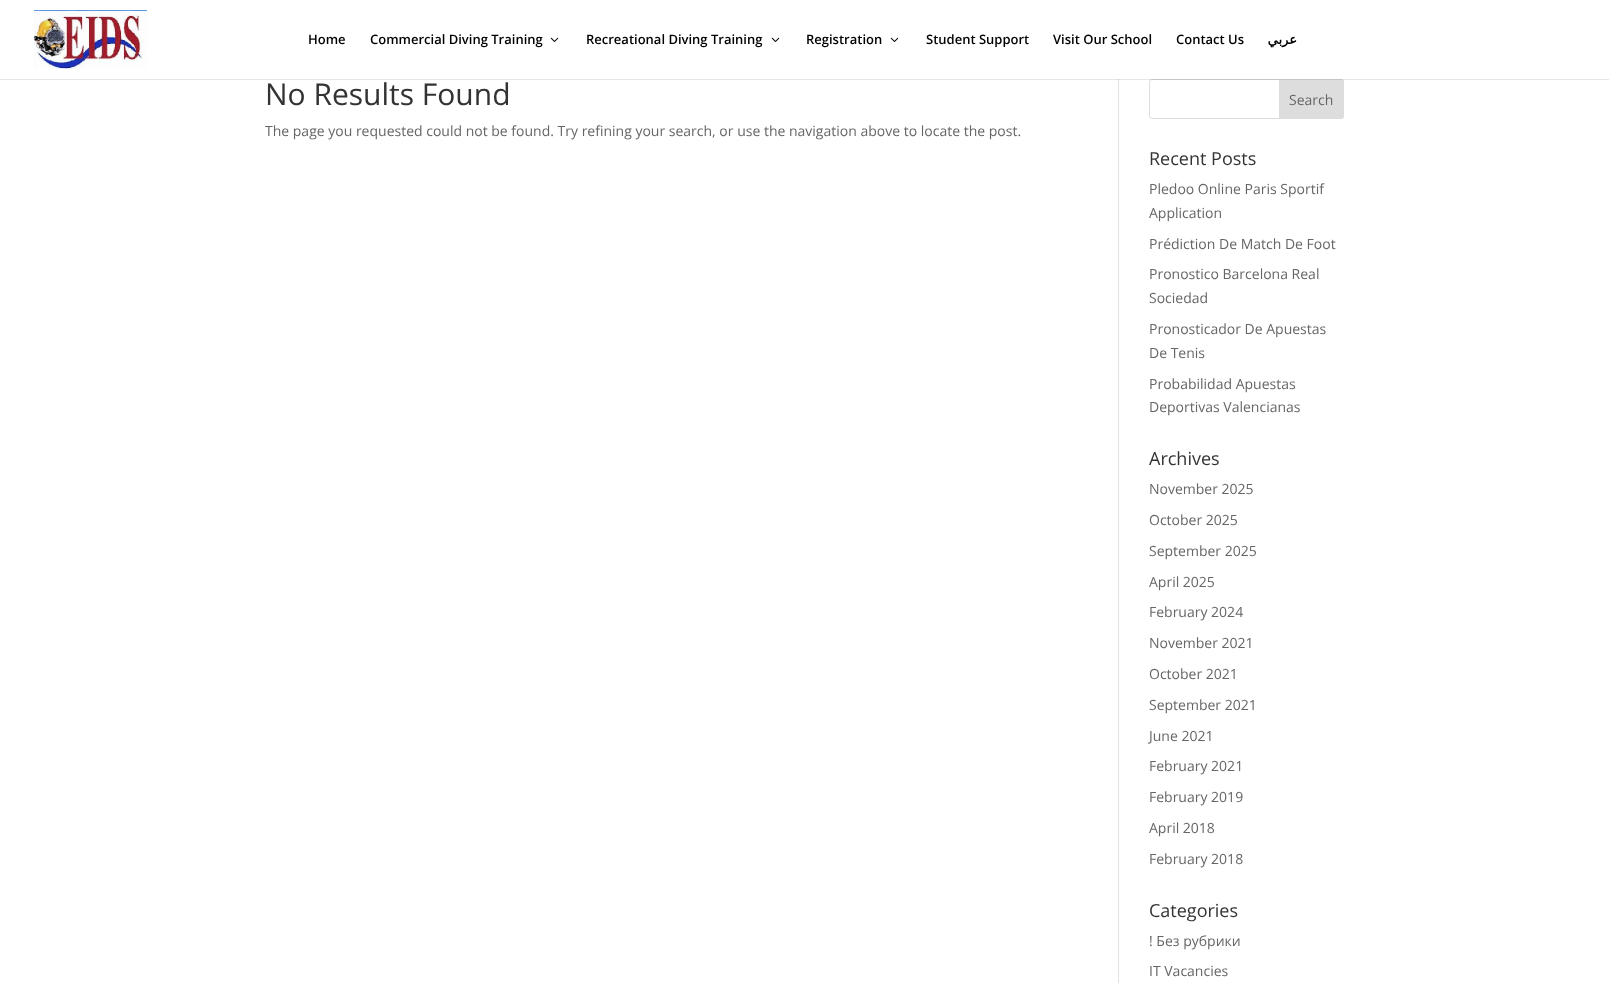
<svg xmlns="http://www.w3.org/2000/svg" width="1609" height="983">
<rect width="100%" height="100%" fill="#fff"/>
<rect x="1118" y="79" width="1" height="904" fill="#e2e2e2"/>
<rect x="1149.5" y="79.5" width="194" height="39" rx="2.5" fill="none" stroke="#ddd"/>
<path d="M1279.5 79.5h61.5c1.5 0 2.5 1 2.5 2.5v34c0 1.5-1 2.5-2.5 2.5h-61.5z" fill="#ddd" stroke="#ddd"/>
<rect y="79" width="1609" height="1" fill="#0000001a"/>
<image x="34" y="10" width="113" height="59" href="media/1.png"/>
<text x="308" y="44" style="font-family:Open Sans;font-size:13px;font-weight:600;fill:#000">Home</text>
<text x="370" y="44" style="font-family:Open Sans;font-size:13px;font-weight:600;fill:#000">Commercial Diving Training</text>
<image x="550" y="37" width="9" height="5" href="media/2.png"/>
<text x="586" y="44" style="font-family:Open Sans;font-size:13px;font-weight:600;fill:#000">Recreational Diving Training</text>
<image x="771" y="37" width="9" height="5" href="media/2.png"/>
<text x="806" y="44" style="font-family:Open Sans;font-size:13px;font-weight:600;fill:#000">Registration</text>
<image x="890" y="37" width="9" height="5" href="media/2.png"/>
<text x="926" y="44" style="font-family:Open Sans;font-size:13px;font-weight:600;fill:#000">Student Support</text>
<text x="1053" y="44" style="font-family:Open Sans;font-size:13px;font-weight:600;fill:#000">Visit Our School</text>
<text x="1176" y="44" style="font-family:Open Sans;font-size:13px;font-weight:600;fill:#000">Contact Us</text>
<text x="1297" y="44" style="font-family:DejaVu Sans;font-size:13px;font-weight:bold;direction:rtl;fill:#000">عربي</text>
<text x="265" y="105" style="font-family:Open Sans;font-size:30px;fill:#333">No Results Found</text>
<text x="265" y="136" style="font-family:Open Sans;font-size:14px;fill:#666">The page you requested could not be found. Try refining your search, or use the navigation above to locate the post.</text>
<text x="1289" y="105" style="font-family:Open Sans;font-size:14px;fill:#666">Search</text>
<text x="1149" y="165" style="font-family:Open Sans;font-size:18px;fill:#333">Recent Posts</text>
<text x="1149" y="194" style="font-family:Open Sans;font-size:14px;fill:#666">Pledoo Online Paris Sportif</text>
<text x="1149" y="218" style="font-family:Open Sans;font-size:14px;fill:#666">Application</text>
<text x="1149" y="249" style="font-family:Open Sans;font-size:14px;fill:#666">Prédiction De Match De Foot</text>
<text x="1149" y="279" style="font-family:Open Sans;font-size:14px;fill:#666">Pronostico Barcelona Real</text>
<text x="1149" y="303" style="font-family:Open Sans;font-size:14px;fill:#666">Sociedad</text>
<text x="1149" y="334" style="font-family:Open Sans;font-size:14px;fill:#666">Pronosticador De Apuestas</text>
<text x="1149" y="358" style="font-family:Open Sans;font-size:14px;fill:#666">De Tenis</text>
<text x="1149" y="389" style="font-family:Open Sans;font-size:14px;fill:#666">Probabilidad Apuestas</text>
<text x="1149" y="412" style="font-family:Open Sans;font-size:14px;fill:#666">Deportivas Valencianas</text>
<text x="1149" y="465" style="font-family:Open Sans;font-size:18px;fill:#333">Archives</text>
<text x="1149" y="494" style="font-family:Open Sans;font-size:14px;fill:#666">November 2025</text>
<text x="1149" y="525" style="font-family:Open Sans;font-size:14px;fill:#666">October 2025</text>
<text x="1149" y="556" style="font-family:Open Sans;font-size:14px;fill:#666">September 2025</text>
<text x="1149" y="587" style="font-family:Open Sans;font-size:14px;fill:#666">April 2025</text>
<text x="1149" y="617" style="font-family:Open Sans;font-size:14px;fill:#666">February 2024</text>
<text x="1149" y="648" style="font-family:Open Sans;font-size:14px;fill:#666">November 2021</text>
<text x="1149" y="679" style="font-family:Open Sans;font-size:14px;fill:#666">October 2021</text>
<text x="1149" y="710" style="font-family:Open Sans;font-size:14px;fill:#666">September 2021</text>
<text x="1149" y="741" style="font-family:Open Sans;font-size:14px;fill:#666">June 2021</text>
<text x="1149" y="771" style="font-family:Open Sans;font-size:14px;fill:#666">February 2021</text>
<text x="1149" y="802" style="font-family:Open Sans;font-size:14px;fill:#666">February 2019</text>
<text x="1149" y="833" style="font-family:Open Sans;font-size:14px;fill:#666">April 2018</text>
<text x="1149" y="864" style="font-family:Open Sans;font-size:14px;fill:#666">February 2018</text>
<text x="1149" y="917" style="font-family:Open Sans;font-size:18px;fill:#333">Categories</text>
<text x="1149" y="946" style="font-family:Open Sans;font-size:14px;fill:#666">! Без рубрики</text>
<text x="1149" y="976" style="font-family:Open Sans;font-size:14px;fill:#666">IT Vacancies</text>
</svg>
